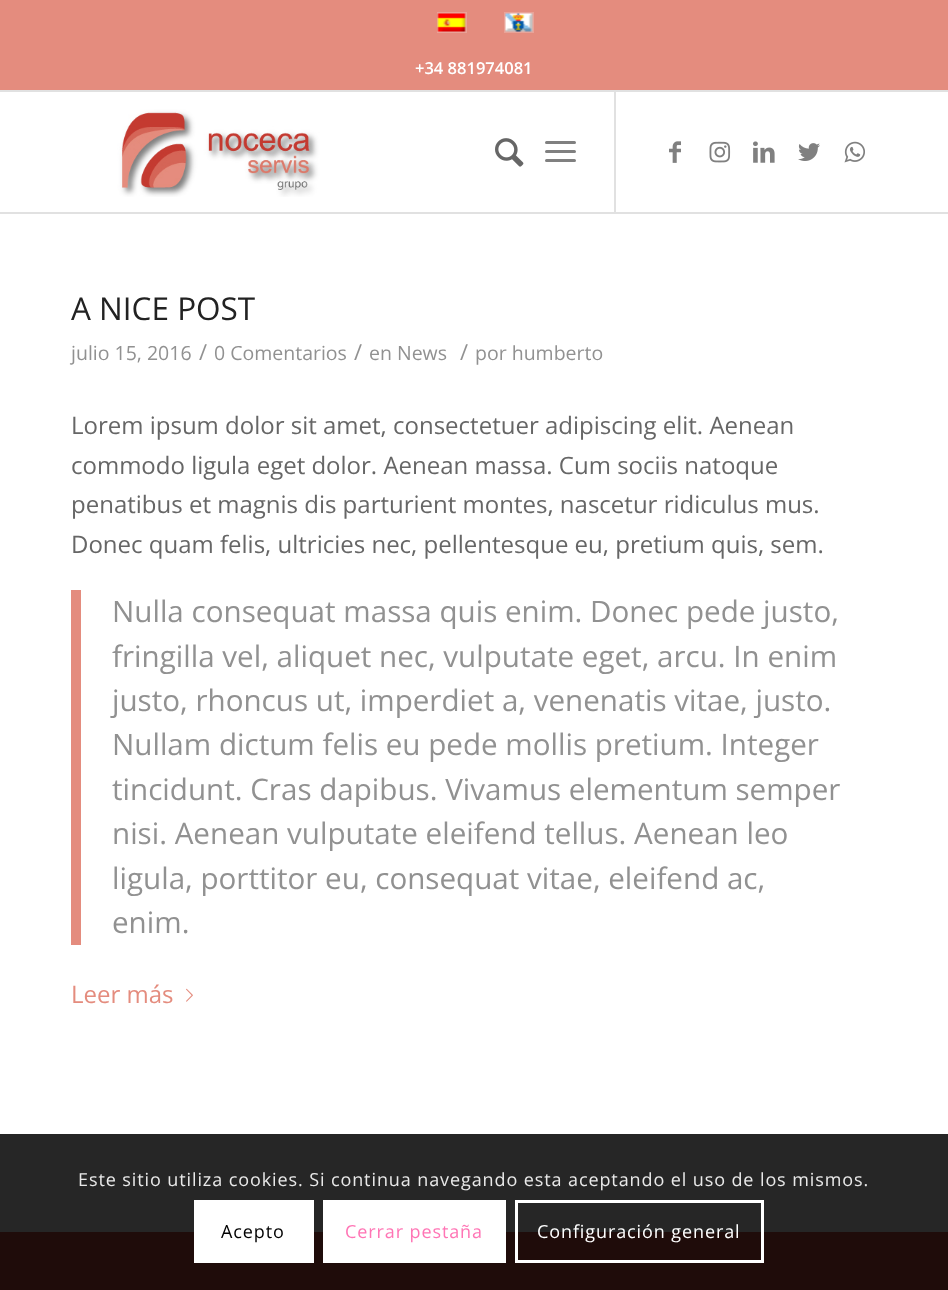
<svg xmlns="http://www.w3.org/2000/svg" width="948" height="1290">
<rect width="100%" height="100%" fill="#fff"/>
<rect width="948" height="90" fill="#e48c7e"/>
<rect y="90" width="948" height="2" fill="#e1e1e1"/>
<rect x="438" y="13" width="28" height="19" fill="none" stroke="#e9a398" stroke-width="2"/>
<image x="437" y="13" width="29" height="19" href="media/1.png"/>
<rect x="505" y="13" width="28" height="19" fill="none" stroke="#e9a398" stroke-width="2"/>
<image x="505" y="13" width="28" height="19" href="media/2.png"/>
<text x="415" y="74" style="font-family:Open Sans;font-size:16.5px;font-weight:600;fill:#fff">+34 881974081</text>
<rect y="212" width="948" height="2" fill="#e1e1e1"/>
<image x="71" y="92" width="289" height="105" href="media/3.png"/>
<rect x="614" y="92" width="2" height="120" fill="#e1e1e1"/>
<image x="495" y="138" width="29" height="29" href="media/4.png"/>
<rect x="545" y="150" width="31" height="3" rx="1.5" fill="#808080"/>
<rect x="545" y="141" width="31" height="3" rx="1.5" fill="#808080"/>
<rect x="545" y="159" width="31" height="3" rx="1.5" fill="#808080"/>
<image x="669" y="141" width="12" height="22" href="media/5.png"/>
<image x="709" y="141" width="22" height="22" href="media/6.png"/>
<image x="753" y="141" width="22" height="22" href="media/7.png"/>
<image x="798" y="143" width="22" height="18" href="media/8.png"/>
<image x="844" y="141" width="21" height="22" href="media/9.png"/>
<rect y="1134" width="948" height="98" fill="#262626"/>
<text x="71" y="320" style="font-family:Open Sans;font-size:31.5px;fill:#222">A NICE POST</text>
<text x="71" y="360" style="font-family:Open Sans;font-size:19.5px;fill:#919191">julio 15, 2016</text>
<text x="199" y="360" style="font-family:Open Sans;font-size:22px;fill:#919191">/</text>
<text x="214" y="360" style="font-family:Open Sans;font-size:19.5px;fill:#919191">0 Comentarios</text>
<text x="354" y="360" style="font-family:Open Sans;font-size:22px;fill:#919191">/</text>
<text x="369" y="360" style="font-family:Open Sans;font-size:19.5px;fill:#919191">en News</text>
<text x="460" y="360" style="font-family:Open Sans;font-size:22px;fill:#919191">/</text>
<text x="475" y="360" style="font-family:Open Sans;font-size:19.5px;fill:#919191">por humberto</text>
<text x="71" y="434" style="font-family:Open Sans;font-size:24px;fill:#666">Lorem ipsum dolor sit amet, consectetuer adipiscing elit. Aenean</text>
<text x="71" y="474" style="font-family:Open Sans;font-size:24px;fill:#666">commodo ligula eget dolor. Aenean massa. Cum sociis natoque</text>
<text x="71" y="513" style="font-family:Open Sans;font-size:24px;fill:#666">penatibus et magnis dis parturient montes, nascetur ridiculus mus.</text>
<text x="71" y="553" style="font-family:Open Sans;font-size:24px;fill:#666">Donec quam felis, ultricies nec, pellentesque eu, pretium quis, sem.</text>
<rect x="71" y="590" width="10" height="355" fill="#e48c7e"/>
<text x="112" y="622" style="font-family:Open Sans;font-size:29.6px;fill:#919191">Nulla consequat massa quis enim. Donec pede justo,</text>
<text x="112" y="667" style="font-family:Open Sans;font-size:29.6px;fill:#919191">fringilla vel, aliquet nec, vulputate eget, arcu. In enim</text>
<text x="112" y="711" style="font-family:Open Sans;font-size:29.6px;fill:#919191">justo, rhoncus ut, imperdiet a, venenatis vitae, justo.</text>
<text x="112" y="755" style="font-family:Open Sans;font-size:29.6px;fill:#919191">Nullam dictum felis eu pede mollis pretium. Integer</text>
<text x="112" y="800" style="font-family:Open Sans;font-size:29.6px;fill:#919191">tincidunt. Cras dapibus. Vivamus elementum semper</text>
<text x="112" y="844" style="font-family:Open Sans;font-size:29.6px;fill:#919191">nisi. Aenean vulputate eleifend tellus. Aenean leo</text>
<text x="112" y="889" style="font-family:Open Sans;font-size:29.6px;fill:#919191">ligula, porttitor eu, consequat vitae, eleifend ac,</text>
<text x="112" y="933" style="font-family:Open Sans;font-size:29.6px;fill:#919191">enim.</text>
<text x="71" y="1003" style="font-family:Open Sans;font-size:24px;fill:#e48c7e">Leer más</text>
<image x="186" y="988" width="7" height="14" href="media/10.png"/>
<rect y="1232" width="948" height="58" fill="#1f0c0a"/>
<text x="78" y="1186" style="font-family:Open Sans;font-size:18px;letter-spacing:0.9px;fill:#e9e9e9">Este sitio utiliza cookies. Si continua navegando esta aceptando el uso de los mismos.</text>
<rect x="194" y="1200" width="120" height="63" fill="#fff"/>
<text x="221" y="1238" style="font-family:Open Sans;font-size:18px;letter-spacing:0.9px;fill:#000">Acepto</text>
<rect x="323" y="1200" width="183" height="63" fill="#fff"/>
<text x="345" y="1238" style="font-family:Open Sans;font-size:18px;letter-spacing:0.9px;fill:#ff75b5">Cerrar pestaña</text>
<rect x="516.5" y="1201.5" width="246" height="60" fill="none" stroke="#fff" stroke-width="3"/>
<text x="537" y="1238" style="font-family:Open Sans;font-size:18px;letter-spacing:0.9px;fill:#fff">Configuración general</text>
</svg>
